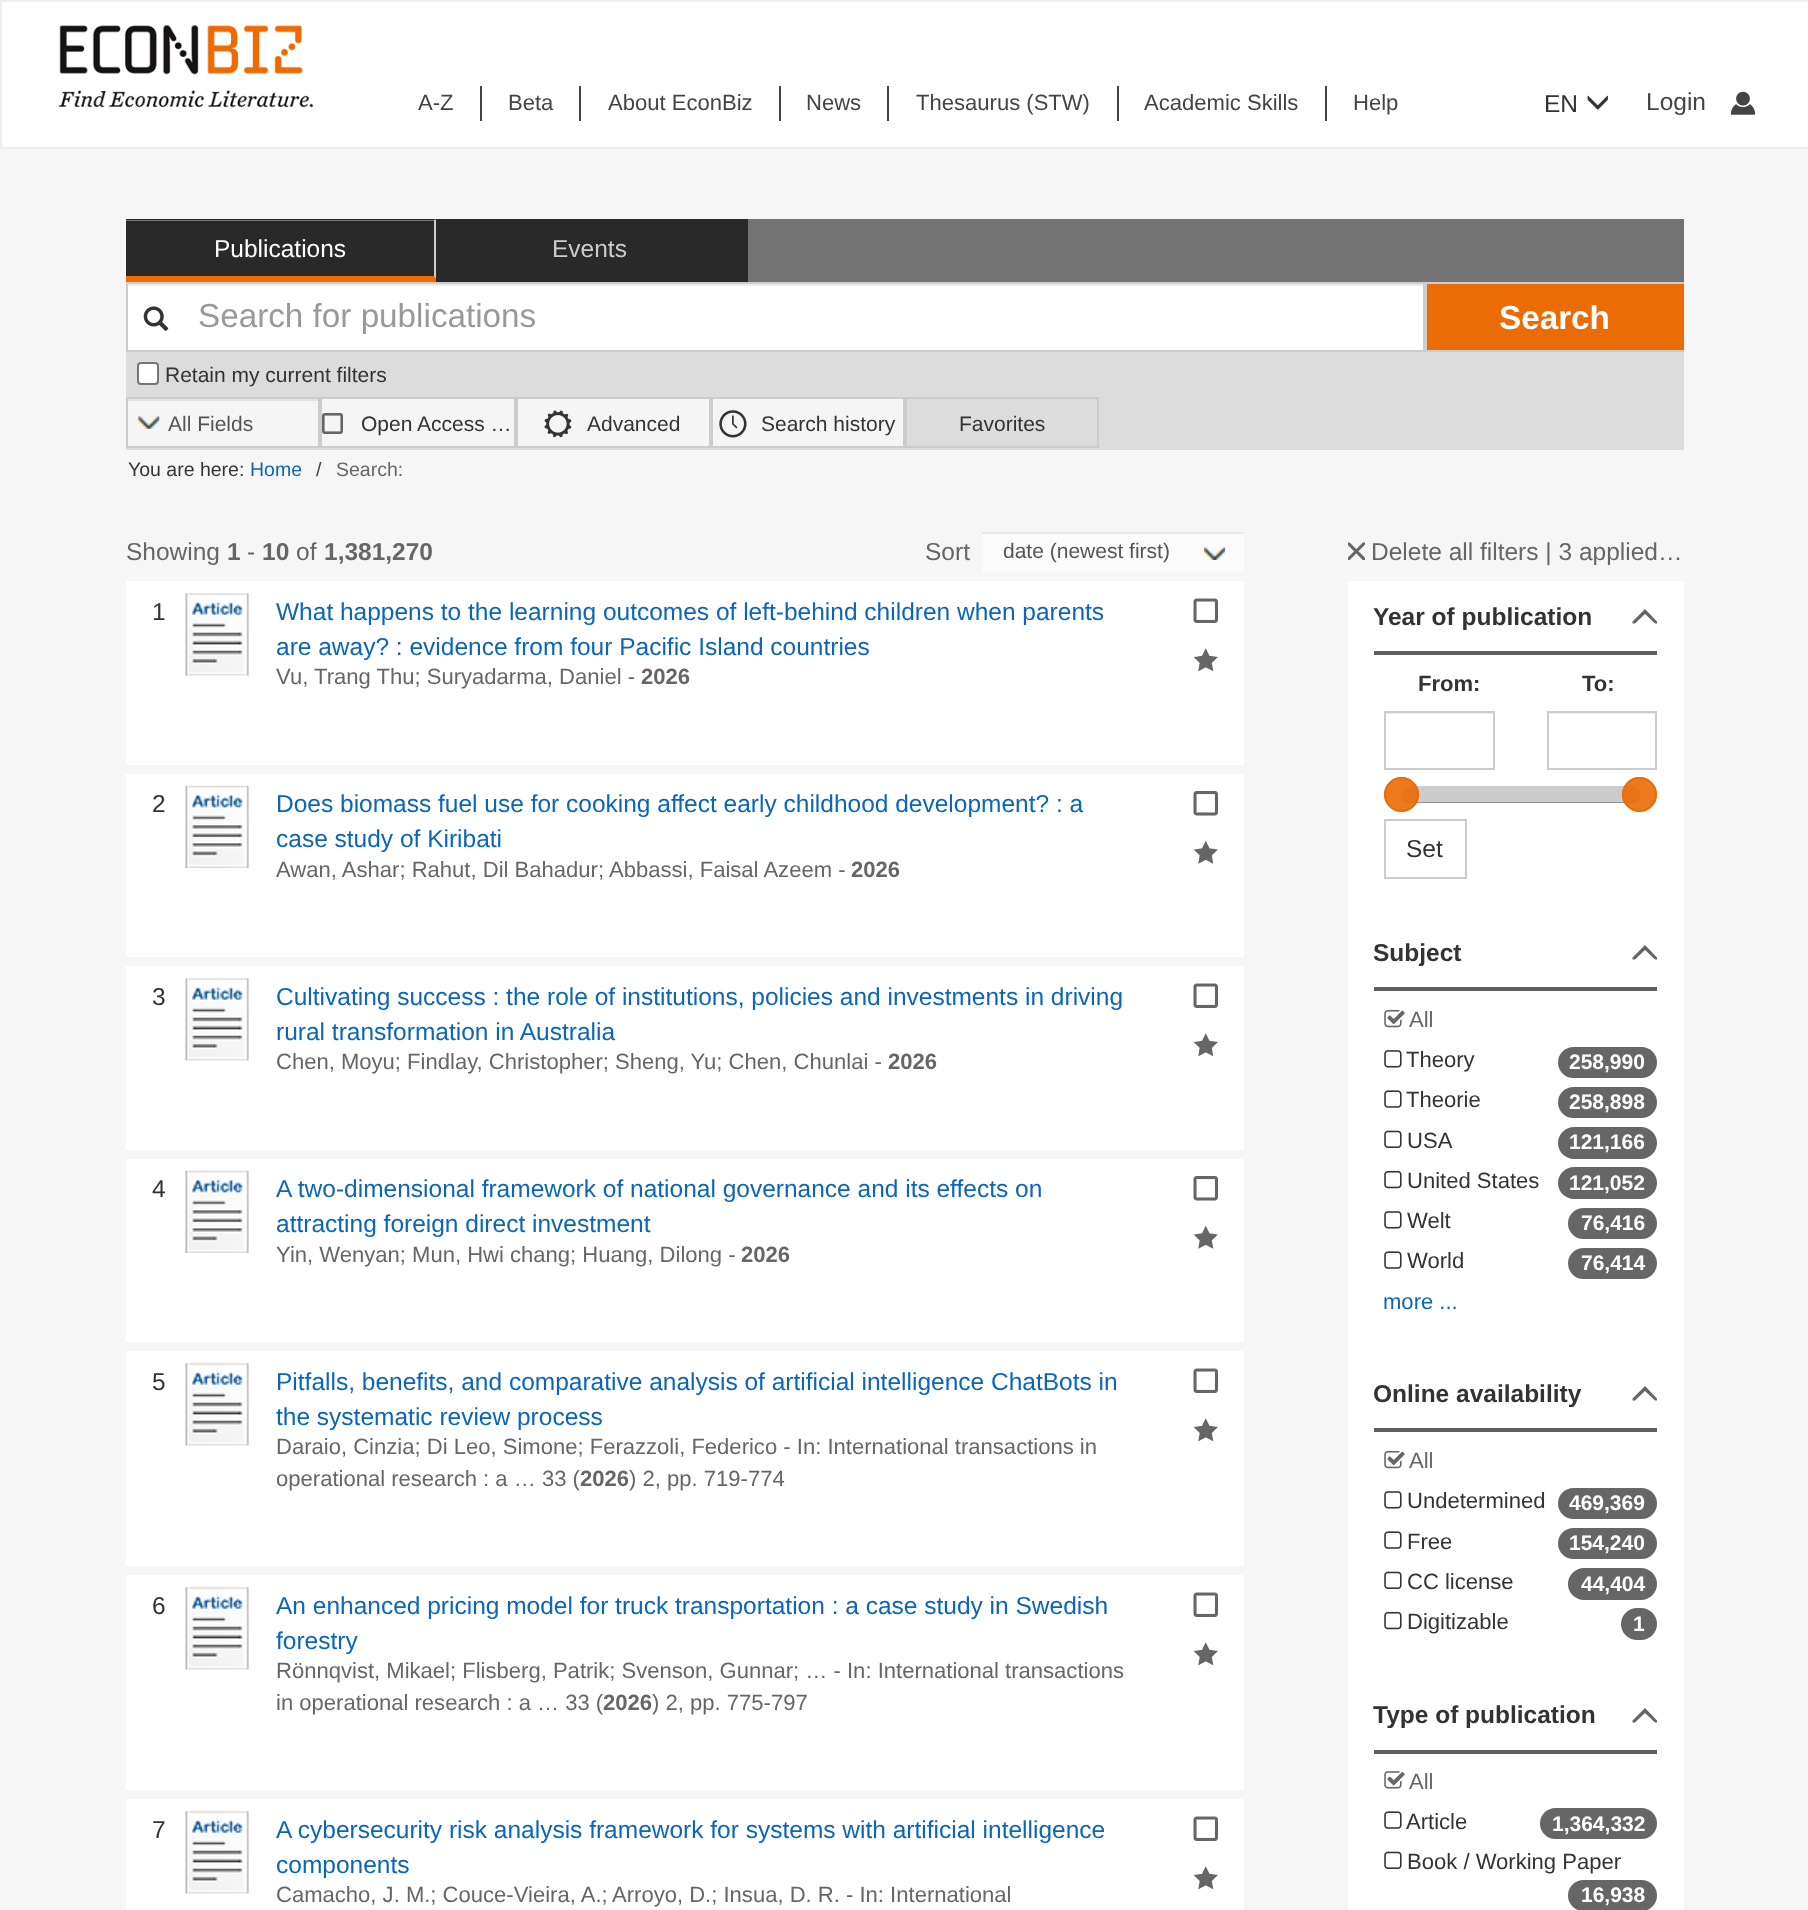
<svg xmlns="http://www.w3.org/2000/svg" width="1808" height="1910">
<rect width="100%" height="100%" fill="#f6f6f6"/>
<rect x="1" y="1" width="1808" height="147" fill="#fff" stroke="#eee" stroke-width="2"/>
<image x="58" y="25" width="256" height="83" href="media/1.png"/>
<text x="418" y="110" style="font-family:Liberation Sans;font-size:22.05px;fill:#444">A-Z</text>
<rect x="480" y="86" width="2" height="35" fill="#444"/>
<text x="508" y="110" style="font-family:Liberation Sans;font-size:22.05px;fill:#444">Beta</text>
<rect x="579" y="86" width="2" height="35" fill="#444"/>
<text x="608" y="110" style="font-family:Liberation Sans;font-size:22.05px;fill:#444">About EconBiz</text>
<rect x="779" y="86" width="2" height="35" fill="#444"/>
<text x="806" y="110" style="font-family:Liberation Sans;font-size:22.05px;fill:#444">News</text>
<rect x="887" y="86" width="2" height="35" fill="#444"/>
<text x="916" y="110" style="font-family:Liberation Sans;font-size:22.05px;fill:#444">Thesaurus (STW)</text>
<rect x="1117" y="86" width="2" height="35" fill="#444"/>
<text x="1144" y="110" style="font-family:Liberation Sans;font-size:22.05px;fill:#444">Academic Skills</text>
<rect x="1325" y="86" width="2" height="35" fill="#444"/>
<text x="1353" y="110" style="font-family:Liberation Sans;font-size:22.05px;fill:#444">Help</text>
<text x="1544" y="112" style="font-family:Liberation Sans;font-size:24.5px;fill:#333">EN</text>
<image x="1587" y="95" width="21" height="15" href="media/2.png"/>
<text x="1646" y="110" style="font-family:Liberation Sans;font-size:24.5px;fill:#444">Login</text>
<image x="1730" y="91" width="26" height="24" href="media/3.png"/>
<rect x="126" y="219" width="1558" height="63" fill="#737373"/>
<rect x="126" y="221" width="308" height="55" fill="#292929"/>
<path d="M126 219h312l-4 1h-308z" fill="#292929"/>
<path d="M438 219v63l-4-6v-56z" fill="#ccc"/>
<path d="M438 282h-312v-6h308z" fill="#eb6b05"/>
<text x="214" y="257" style="font-family:Liberation Sans;font-size:24.5px;fill:#fff">Publications</text>
<rect x="436" y="221" width="308" height="56" fill="#292929"/>
<rect x="436" y="219" width="311" height="2" fill="#292929"/>
<rect x="744" y="219" width="4" height="63" fill="#292929"/>
<rect x="436" y="277" width="311" height="5" fill="#292929"/>
<text x="552" y="257" style="font-family:Liberation Sans;font-size:24.5px;fill:#ccc">Events</text>
<rect x="128" y="286" width="1295" height="64" fill="#fff"/>
<rect x="128" y="284" width="1295" height="2" fill="#ececec"/>
<rect x="127" y="283" width="1297" height="68" fill="none" stroke="#ccc" stroke-width="2"/>
<image x="143" y="306" width="26" height="25" href="media/4.png"/>
<text x="198" y="327" style="font-family:Liberation Sans;font-size:33.25px;fill:#999">Search for publications</text>
<rect x="1427" y="284" width="257" height="66" fill="#eb6b05"/>
<rect x="1425" y="282" width="259" height="2" fill="#ccc"/>
<rect x="1425" y="350" width="259" height="2" fill="#ccc"/>
<rect x="1425" y="282" width="2" height="70" fill="#ccc"/>
<text x="1499" y="329" style="font-family:Liberation Sans;font-size:33.25px;font-weight:bold;fill:#fff">Search</text>
<rect x="126" y="352" width="1558" height="98" fill="#dcdcdc"/>
<rect x="138" y="363" width="20" height="21" rx="3" fill="#fff" stroke="#767676" stroke-width="2"/>
<text x="165" y="382" style="font-family:Liberation Sans;font-size:21px;fill:#333">Retain my current filters</text>
<rect x="127" y="398" width="192" height="49" fill="#f5f5f5" stroke="#ccc" stroke-width="2"/>
<image x="138" y="416" width="22" height="13" href="media/5.png"/>
<rect x="128" y="399" width="191" height="2" fill="#00000012"/>
<text x="168" y="431" style="font-family:Liberation Sans;font-size:21px;fill:#555">All Fields</text>
<rect x="321" y="398" width="194" height="49" fill="#f5f5f5" stroke="#ccc" stroke-width="2"/>
<image x="322" y="413" width="21" height="21" href="media/6.png"/>
<text x="361" y="431" style="font-family:Liberation Sans;font-size:21px;fill:#333">Open Access …</text>
<rect x="517" y="398" width="193" height="49" fill="#f5f5f5" stroke="#ccc" stroke-width="2"/>
<image x="544" y="410" width="28" height="28" href="media/7.png"/>
<text x="587" y="431" style="font-family:Liberation Sans;font-size:21px;fill:#333">Advanced</text>
<rect x="712" y="398" width="192" height="49" fill="#f5f5f5" stroke="#ccc" stroke-width="2"/>
<image x="719" y="410" width="28" height="28" href="media/8.png"/>
<text x="761" y="431" style="font-family:Liberation Sans;font-size:21px;fill:#333">Search history</text>
<rect x="906" y="398" width="192" height="49" fill="none" stroke="#ccc" stroke-width="2"/>
<text x="959" y="431" style="font-family:Liberation Sans;font-size:21px;fill:#333">Favorites</text>
<text x="128" y="476" style="font-family:Liberation Sans;font-size:19.5px;fill:#333">You are here:</text>
<text x="250" y="476" style="font-family:Liberation Sans;font-size:19.5px;fill:#0c66b5">Home</text>
<text x="316" y="476" style="font-family:Liberation Sans;font-size:19.5px;fill:#444">/</text>
<text x="336" y="476" style="font-family:Liberation Sans;font-size:19.5px;fill:#666">Search:</text>
<text x="126" y="560" style="font-family:Liberation Sans;font-size:24.5px;fill:#666">Showing</text>
<text x="227" y="560" style="font-family:Liberation Sans;font-size:24.5px;font-weight:bold;fill:#666">1</text>
<text x="247" y="560" style="font-family:Liberation Sans;font-size:24.5px;fill:#666">-</text>
<text x="262" y="560" style="font-family:Liberation Sans;font-size:24.5px;font-weight:bold;fill:#666">10</text>
<text x="296" y="560" style="font-family:Liberation Sans;font-size:24.5px;fill:#666">of</text>
<text x="324" y="560" style="font-family:Liberation Sans;font-size:24.5px;font-weight:bold;fill:#666">1,381,270</text>
<text x="925" y="560" style="font-family:Liberation Sans;font-size:24.5px;fill:#666">Sort</text>
<rect x="982" y="534" width="262" height="38" fill="#fbfbfb"/>
<image x="1204" y="546" width="21" height="14" href="media/9.png"/>
<rect x="982" y="532" width="262" height="2" fill="#e8e8e8"/>
<text x="1003" y="558" style="font-family:Liberation Sans;font-size:21px;fill:#555">date (newest first)</text>
<rect x="126" y="581" width="1118" height="184" fill="#fff"/>
<text x="152" y="620" style="font-family:Liberation Sans;font-size:24.5px;fill:#333">1</text>
<image x="185" y="593" width="64" height="83" href="media/10.png"/>
<text x="276" y="620" style="font-family:Liberation Sans;font-size:24.5px;fill:#0c66b5">What happens to the learning outcomes of left-behind children when parents</text>
<text x="276" y="655" style="font-family:Liberation Sans;font-size:24.5px;fill:#0c66b5">are away? : evidence from four Pacific Island countries</text>
<text x="276" y="684" style="font-family:Liberation Sans;font-size:22.05px;fill:#666">Vu, Trang Thu; Suryadarma, Daniel -</text>
<text x="641" y="684" style="font-family:Liberation Sans;font-size:22.05px;font-weight:bold;fill:#666">2026</text>
<image x="1193" y="598" width="25" height="25" href="media/11.png"/>
<image x="1193" y="648" width="25" height="24" href="media/12.png"/>
<rect x="126" y="774" width="1118" height="183" fill="#fff"/>
<text x="152" y="812" style="font-family:Liberation Sans;font-size:24.5px;fill:#333">2</text>
<image x="185" y="785" width="64" height="83" href="media/13.png"/>
<text x="276" y="812" style="font-family:Liberation Sans;font-size:24.5px;fill:#0c66b5">Does biomass fuel use for cooking affect early childhood development? : a</text>
<text x="276" y="847" style="font-family:Liberation Sans;font-size:24.5px;fill:#0c66b5">case study of Kiribati</text>
<text x="276" y="877" style="font-family:Liberation Sans;font-size:22.05px;fill:#666">Awan, Ashar; Rahut, Dil Bahadur;</text>
<text x="609" y="877" style="font-family:Liberation Sans;font-size:22.05px;fill:#666">Abbassi, Faisal Azeem -</text>
<text x="851" y="877" style="font-family:Liberation Sans;font-size:22.05px;font-weight:bold;fill:#666">2026</text>
<image x="1193" y="791" width="25" height="25" href="media/14.png"/>
<image x="1193" y="840" width="25" height="24" href="media/15.png"/>
<rect x="126" y="966" width="1118" height="184" fill="#fff"/>
<text x="152" y="1005" style="font-family:Liberation Sans;font-size:24.5px;fill:#333">3</text>
<image x="185" y="978" width="64" height="83" href="media/10.png"/>
<text x="276" y="1005" style="font-family:Liberation Sans;font-size:24.5px;fill:#0c66b5">Cultivating success : the role of institutions, policies and investments in driving</text>
<text x="276" y="1040" style="font-family:Liberation Sans;font-size:24.5px;fill:#0c66b5">rural transformation in Australia</text>
<text x="276" y="1069" style="font-family:Liberation Sans;font-size:22.05px;fill:#666">Chen, Moyu; Findlay, Christopher; Sheng, Yu; Chen, Chunlai -</text>
<text x="888" y="1069" style="font-family:Liberation Sans;font-size:22.05px;font-weight:bold;fill:#666">2026</text>
<image x="1193" y="983" width="25" height="25" href="media/11.png"/>
<image x="1193" y="1033" width="25" height="24" href="media/12.png"/>
<rect x="126" y="1159" width="1118" height="183" fill="#fff"/>
<text x="152" y="1197" style="font-family:Liberation Sans;font-size:24.5px;fill:#333">4</text>
<image x="185" y="1170" width="64" height="83" href="media/13.png"/>
<text x="276" y="1197" style="font-family:Liberation Sans;font-size:24.5px;fill:#0c66b5">A two-dimensional framework of national governance and its effects on</text>
<text x="276" y="1232" style="font-family:Liberation Sans;font-size:24.5px;fill:#0c66b5">attracting foreign direct investment</text>
<text x="276" y="1262" style="font-family:Liberation Sans;font-size:22.05px;fill:#666">Yin, Wenyan; Mun, Hwi chang; Huang, Dilong -</text>
<text x="741" y="1262" style="font-family:Liberation Sans;font-size:22.05px;font-weight:bold;fill:#666">2026</text>
<image x="1193" y="1176" width="25" height="25" href="media/14.png"/>
<image x="1193" y="1225" width="25" height="24" href="media/15.png"/>
<rect x="126" y="1351" width="1118" height="215" fill="#fff"/>
<text x="152" y="1390" style="font-family:Liberation Sans;font-size:24.5px;fill:#333">5</text>
<image x="185" y="1363" width="64" height="83" href="media/10.png"/>
<text x="276" y="1390" style="font-family:Liberation Sans;font-size:24.5px;fill:#0c66b5">Pitfalls, benefits, and comparative analysis of artificial intelligence ChatBots in</text>
<text x="276" y="1425" style="font-family:Liberation Sans;font-size:24.5px;fill:#0c66b5">the systematic review process</text>
<text x="276" y="1454" style="font-family:Liberation Sans;font-size:22.05px;fill:#666">Daraio, Cinzia; Di Leo, Simone; Ferazzoli, Federico - In: International transactions in</text>
<text x="276" y="1486" style="font-family:Liberation Sans;font-size:22.05px;fill:#666">operational research : a … 33 (</text>
<text x="580" y="1486" style="font-family:Liberation Sans;font-size:22.05px;font-weight:bold;fill:#666">2026</text>
<text x="629" y="1486" style="font-family:Liberation Sans;font-size:22.05px;fill:#666">) 2, pp. 719-774</text>
<image x="1193" y="1368" width="25" height="25" href="media/11.png"/>
<image x="1193" y="1418" width="25" height="24" href="media/12.png"/>
<rect x="126" y="1575" width="1118" height="215" fill="#fff"/>
<text x="152" y="1614" style="font-family:Liberation Sans;font-size:24.5px;fill:#333">6</text>
<image x="185" y="1587" width="64" height="83" href="media/10.png"/>
<text x="276" y="1614" style="font-family:Liberation Sans;font-size:24.5px;fill:#0c66b5">An enhanced pricing model for truck transportation : a case study in Swedish</text>
<text x="276" y="1649" style="font-family:Liberation Sans;font-size:24.5px;fill:#0c66b5">forestry</text>
<text x="276" y="1678" style="font-family:Liberation Sans;font-size:22.05px;fill:#666">Rönnqvist, Mikael; Flisberg, Patrik; Svenson, Gunnar; … - In: International transactions</text>
<text x="276" y="1710" style="font-family:Liberation Sans;font-size:22.05px;fill:#666">in operational research : a … 33 (</text>
<text x="603" y="1710" style="font-family:Liberation Sans;font-size:22.05px;font-weight:bold;fill:#666">2026</text>
<text x="652" y="1710" style="font-family:Liberation Sans;font-size:22.05px;fill:#666">) 2, pp. 775-797</text>
<image x="1193" y="1592" width="25" height="25" href="media/11.png"/>
<image x="1193" y="1642" width="25" height="24" href="media/12.png"/>
<rect x="126" y="1799" width="1118" height="111" fill="#fff"/>
<text x="152" y="1838" style="font-family:Liberation Sans;font-size:24.5px;fill:#333">7</text>
<image x="185" y="1811" width="64" height="83" href="media/10.png"/>
<text x="276" y="1838" style="font-family:Liberation Sans;font-size:24.5px;fill:#0c66b5">A cybersecurity risk analysis framework for systems with artificial intelligence</text>
<text x="276" y="1873" style="font-family:Liberation Sans;font-size:24.5px;fill:#0c66b5">components</text>
<text x="276" y="1902" style="font-family:Liberation Sans;font-size:22.05px;fill:#666">Camacho, J. M.; Couce-Vieira, A.;</text>
<text x="612" y="1902" style="font-family:Liberation Sans;font-size:22.05px;fill:#666">Arroyo, D.; Insua, D. R. - In: International</text>
<image x="1193" y="1816" width="25" height="25" href="media/11.png"/>
<image x="1193" y="1866" width="25" height="24" href="media/12.png"/>
<image x="1348" y="542" width="17" height="18" href="media/16.png"/>
<text x="1371" y="560" style="font-family:Liberation Sans;font-size:24.5px;fill:#666">Delete all filters | 3 applied…</text>
<rect x="1348" y="581" width="336" height="1329" fill="#fff"/>
<rect x="1374" y="651" width="283" height="4" fill="#5e5e5e"/>
<text x="1373" y="625" style="font-family:Liberation Sans;font-size:24.5px;font-weight:bold;fill:#333">Year of publication</text>
<path d="M1635 623.5h-2.5v-2l12.5-12.5l12 12.5v2h-2l-10-9.5z" fill="#666"/>
<text x="1418" y="691" style="font-family:Liberation Sans;font-size:22.05px;font-weight:bold;fill:#333">From:</text>
<rect x="1386" y="713" width="107" height="1" fill="#ececec"/>
<rect x="1385" y="712" width="109" height="57" fill="none" stroke="#ccc" stroke-width="2"/>
<text x="1582" y="691" style="font-family:Liberation Sans;font-size:22.05px;font-weight:bold;fill:#333">To:</text>
<rect x="1549" y="713" width="107" height="1" fill="#ececec"/>
<rect x="1548" y="712" width="108" height="57" fill="none" stroke="#ccc" stroke-width="2"/>
<rect x="1402" y="786" width="238" height="17" rx="7" fill="#ccc"/>
<path d="M1402 794v2c0 4 3 7 7 7h224c4 0 7-3 7-7v-2c0 4-3 8-7 8h-224c-4 0-7-4-7-8z" fill="#0000004d"/>
<circle cx="1401.5" cy="794.5" r="17.5" fill="#eb6b05e6"/>
<circle cx="1401.5" cy="794.5" r="16.5" fill="none" stroke="#eb6b05e6" stroke-width="2"/>
<circle cx="1639.5" cy="794.5" r="17.5" fill="#eb6b05e6"/>
<circle cx="1639.5" cy="794.5" r="16.5" fill="none" stroke="#eb6b05e6" stroke-width="2"/>
<rect x="1385" y="820" width="81" height="58" fill="none" stroke="#ccc" stroke-width="2"/>
<text x="1406" y="857" style="font-family:Liberation Sans;font-size:24.5px;fill:#333">Set</text>
<rect x="1374" y="987" width="283" height="4" fill="#5e5e5e"/>
<text x="1373" y="961" style="font-family:Liberation Sans;font-size:24.5px;font-weight:bold;fill:#333">Subject</text>
<path d="M1635 959.5h-2.5v-2l12.5-12.5l12 12.5v2h-2l-10-9.5z" fill="#666"/>
<image x="1384" y="1009" width="21" height="19" href="media/17.png"/>
<text x="1409" y="1027" style="font-family:Liberation Sans;font-size:22.05px;fill:#666">All</text>
<image x="1384" y="1050" width="18" height="18" href="media/18.png"/>
<text x="1406" y="1067" style="font-family:Liberation Sans;font-size:22.05px;fill:#333">Theory</text>
<rect x="1558" y="1047" width="99" height="31" rx="15.5" fill="#666"/>
<text x="1569" y="1069" style="font-family:Liberation Sans;font-size:21px;font-weight:bold;fill:#fff">258,990</text>
<image x="1384" y="1090" width="18" height="18" href="media/19.png"/>
<text x="1406" y="1107" style="font-family:Liberation Sans;font-size:22.05px;fill:#333">Theorie</text>
<rect x="1558" y="1087" width="99" height="31" rx="15.5" fill="#666"/>
<text x="1569" y="1109" style="font-family:Liberation Sans;font-size:21px;font-weight:bold;fill:#fff">258,898</text>
<image x="1384" y="1130" width="18" height="18" href="media/20.png"/>
<text x="1407" y="1148" style="font-family:Liberation Sans;font-size:22.05px;fill:#333">USA</text>
<rect x="1558" y="1127" width="99" height="32" rx="16" fill="#666"/>
<text x="1569" y="1149" style="font-family:Liberation Sans;font-size:21px;font-weight:bold;fill:#fff">121,166</text>
<image x="1384" y="1170" width="18" height="19" href="media/21.png"/>
<text x="1407" y="1188" style="font-family:Liberation Sans;font-size:22.05px;fill:#333">United States</text>
<rect x="1558" y="1167" width="99" height="32" rx="16" fill="#666"/>
<text x="1569" y="1190" style="font-family:Liberation Sans;font-size:21px;font-weight:bold;fill:#fff">121,052</text>
<image x="1384" y="1211" width="18" height="18" href="media/18.png"/>
<text x="1407" y="1228" style="font-family:Liberation Sans;font-size:22.05px;fill:#333">Welt</text>
<rect x="1568" y="1208" width="89" height="31" rx="15.5" fill="#666"/>
<text x="1581" y="1230" style="font-family:Liberation Sans;font-size:21px;font-weight:bold;fill:#fff">76,416</text>
<image x="1384" y="1251" width="18" height="18" href="media/19.png"/>
<text x="1407" y="1268" style="font-family:Liberation Sans;font-size:22.05px;fill:#333">World</text>
<rect x="1568" y="1248" width="89" height="31" rx="15.5" fill="#666"/>
<text x="1581" y="1270" style="font-family:Liberation Sans;font-size:21px;font-weight:bold;fill:#fff">76,414</text>
<text x="1383" y="1309" style="font-family:Liberation Sans;font-size:22.05px;fill:#0c66b5">more ...</text>
<rect x="1374" y="1428" width="283" height="4" fill="#5e5e5e"/>
<text x="1373" y="1402" style="font-family:Liberation Sans;font-size:24.5px;font-weight:bold;fill:#333">Online availability</text>
<path d="M1635 1400.5h-2.5v-2l12.5-12.5l12 12.5v2h-2l-10-9.5z" fill="#666"/>
<image x="1384" y="1450" width="21" height="19" href="media/17.png"/>
<text x="1409" y="1468" style="font-family:Liberation Sans;font-size:22.05px;fill:#666">All</text>
<image x="1384" y="1491" width="18" height="18" href="media/18.png"/>
<text x="1407" y="1508" style="font-family:Liberation Sans;font-size:22.05px;fill:#333">Undetermined</text>
<rect x="1558" y="1488" width="99" height="31" rx="15.5" fill="#666"/>
<text x="1569" y="1510" style="font-family:Liberation Sans;font-size:21px;font-weight:bold;fill:#fff">469,369</text>
<image x="1384" y="1531" width="18" height="18" href="media/19.png"/>
<text x="1407" y="1549" style="font-family:Liberation Sans;font-size:22.05px;fill:#333">Free</text>
<rect x="1558" y="1528" width="99" height="31" rx="15.5" fill="#666"/>
<text x="1569" y="1550" style="font-family:Liberation Sans;font-size:21px;font-weight:bold;fill:#fff">154,240</text>
<image x="1384" y="1571" width="18" height="18" href="media/20.png"/>
<text x="1407" y="1589" style="font-family:Liberation Sans;font-size:22.05px;fill:#333">CC license</text>
<rect x="1568" y="1568" width="89" height="32" rx="16" fill="#666"/>
<text x="1581" y="1591" style="font-family:Liberation Sans;font-size:21px;font-weight:bold;fill:#fff">44,404</text>
<image x="1384" y="1611" width="18" height="19" href="media/21.png"/>
<text x="1407" y="1629" style="font-family:Liberation Sans;font-size:22.05px;fill:#333">Digitizable</text>
<rect x="1621" y="1608" width="36" height="32" rx="16" fill="#666"/>
<text x="1633" y="1631" style="font-family:Liberation Sans;font-size:21px;font-weight:bold;fill:#fff">1</text>
<rect x="1374" y="1750" width="283" height="4" fill="#5e5e5e"/>
<text x="1373" y="1723" style="font-family:Liberation Sans;font-size:24.5px;font-weight:bold;fill:#333">Type of publication</text>
<path d="M1635 1722.5h-2.5v-2l12.5-12.5l12 12.5v2h-2l-10-9.5z" fill="#666"/>
<image x="1384" y="1771" width="21" height="18" href="media/22.png"/>
<text x="1409" y="1789" style="font-family:Liberation Sans;font-size:22.05px;fill:#666">All</text>
<image x="1384" y="1811" width="18" height="18" href="media/19.png"/>
<text x="1406" y="1829" style="font-family:Liberation Sans;font-size:22.05px;fill:#333">Article</text>
<rect x="1540" y="1808" width="117" height="31" rx="15.5" fill="#666"/>
<text x="1552" y="1831" style="font-family:Liberation Sans;font-size:21px;font-weight:bold;fill:#fff">1,364,332</text>
<image x="1384" y="1851" width="18" height="18" href="media/20.png"/>
<text x="1407" y="1869" style="font-family:Liberation Sans;font-size:22.05px;fill:#333">Book / Working Paper</text>
<rect x="1568" y="1880" width="89" height="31" rx="15.5" fill="#666"/>
<text x="1581" y="1902" style="font-family:Liberation Sans;font-size:21px;font-weight:bold;fill:#fff">16,938</text>
</svg>
